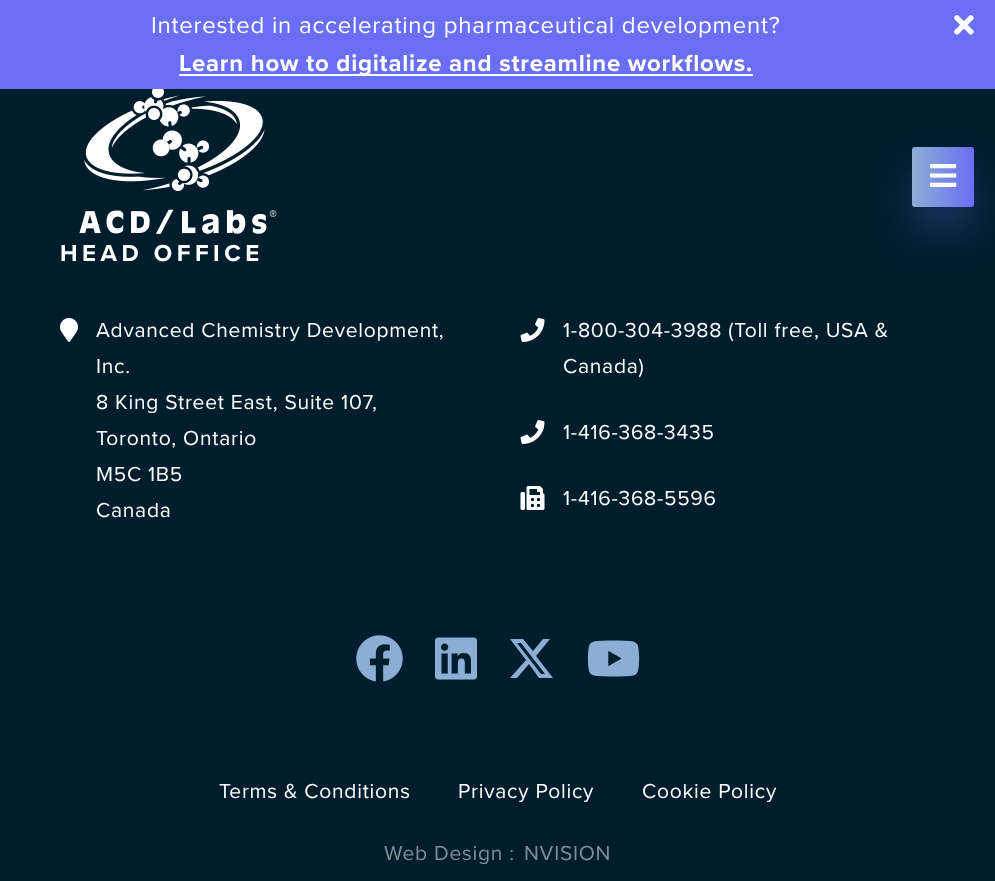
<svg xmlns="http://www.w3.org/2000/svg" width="995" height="881">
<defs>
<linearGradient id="g1" gradientUnits="userSpaceOnUse" x1="912" y1="177" x2="974" y2="177"><stop offset="0" stop-color="#8baed4"/><stop offset="1" stop-color="#6a6ef4"/></linearGradient>
</defs>
<rect width="100%" height="100%" fill="#001d2e"/>
<rect width="995" height="89" fill="#6a6ef4"/>
<text x="151" y="33" style="font-family:Proxima Nova;font-size:24px;letter-spacing:0.75px;fill:#fff">Interested in accelerating pharmaceutical development?</text>
<rect x="179" y="74" width="574" height="2" fill="#fff"/>
<text x="179" y="71" style="font-family:Proxima Nova;font-size:24px;font-weight:bold;letter-spacing:0.75px;fill:#fff">Learn how to digitalize and streamline workflows.</text>
<image x="954" y="15" width="20" height="20" href="media/1.png"/>
<rect x="912" y="171" width="62" height="60" rx="3" fill="#6a6ef43d" filter="blur(18px)"/>
<rect x="912" y="147" width="62" height="60" rx="3" fill="url(#g1)"/>
<image x="930" y="164" width="27" height="23" href="media/2.png"/>
<image x="79" y="89" width="198" height="145" href="media/3.png"/>
<text x="60" y="261" style="font-family:Proxima Nova;font-size:24px;font-weight:bold;letter-spacing:4.5px;fill:#fff">HEAD OFFICE</text>
<image x="60" y="318" width="18" height="24" href="media/4.png"/>
<text x="96" y="337" style="font-family:Proxima Nova;font-size:21px;letter-spacing:0.75px;fill:#fff">Advanced Chemistry Development,</text>
<text x="96" y="373" style="font-family:Proxima Nova;font-size:21px;letter-spacing:0.75px;fill:#fff">Inc.</text>
<text x="96" y="409" style="font-family:Proxima Nova;font-size:21px;letter-spacing:0.75px;fill:#fff">8 King Street East, Suite 107,</text>
<text x="96" y="445" style="font-family:Proxima Nova;font-size:21px;letter-spacing:0.75px;fill:#fff">Toronto, Ontario</text>
<text x="96" y="481" style="font-family:Proxima Nova;font-size:21px;letter-spacing:0.75px;fill:#fff">M5C 1B5</text>
<text x="96" y="517" style="font-family:Proxima Nova;font-size:21px;letter-spacing:0.75px;fill:#fff">Canada</text>
<image x="520" y="318" width="25" height="24" href="media/5.png"/>
<text x="563" y="337" style="font-family:Proxima Nova;font-size:21px;letter-spacing:0.75px;fill:#fff">1-800-304-3988 (Toll free, USA &amp;</text>
<text x="563" y="373" style="font-family:Proxima Nova;font-size:21px;letter-spacing:0.75px;fill:#fff">Canada)</text>
<image x="520" y="420" width="25" height="24" href="media/5.png"/>
<text x="563" y="439" style="font-family:Proxima Nova;font-size:21px;letter-spacing:0.75px;fill:#fff">1-416-368-3435</text>
<image x="520" y="486" width="25" height="24" href="media/6.png"/>
<text x="563" y="505" style="font-family:Proxima Nova;font-size:21px;letter-spacing:0.75px;fill:#fff">1-416-368-5596</text>
<image x="356" y="635" width="47" height="47" href="media/7.png"/>
<image x="435" y="637" width="42" height="43" href="media/8.png"/>
<path d="M543 639h7l-14 17l17 22h-14l-10-14l-12 14h-7l16-18l-16-21h13l10 12zm-2 35h4l-24-31h-4z" fill="#8baed4"/>
<image x="587" y="640" width="53" height="37" href="media/9.png"/>
<text x="219" y="798" style="font-family:Proxima Nova;font-size:21px;letter-spacing:0.75px;fill:#fff">Terms &amp; Conditions</text>
<text x="458" y="798" style="font-family:Proxima Nova;font-size:21px;letter-spacing:0.75px;fill:#fff">Privacy Policy</text>
<text x="642" y="798" style="font-family:Proxima Nova;font-size:21px;letter-spacing:0.75px;fill:#fff">Cookie Policy</text>
<text x="384" y="860" style="font-family:Proxima Nova;font-size:21px;letter-spacing:0.75px;fill:#808e97">Web Design :</text>
<text x="524" y="860" style="font-family:Proxima Nova;font-size:21px;letter-spacing:0.75px;fill:#808e97">NVISION</text>
</svg>
